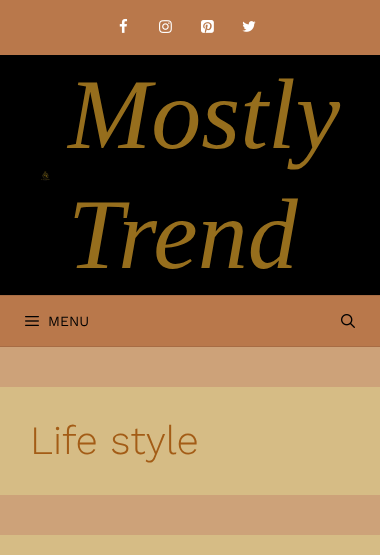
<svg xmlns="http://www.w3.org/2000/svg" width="380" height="555">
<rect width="100%" height="100%" fill="#cda279"/>
<rect width="380" height="55" fill="#b9784b"/>
<image x="119" y="18" width="9" height="15" href="media/1.png"/>
<image x="159" y="20" width="13" height="13" href="media/2.png"/>
<image x="201" y="20" width="13" height="13" href="media/3.png"/>
<image x="242" y="21" width="14" height="11" href="media/4.png"/>
<rect y="55" width="380" height="240" fill="#000"/>
<image x="41" y="171" width="9" height="10" href="media/5.png"/>
<text x="68" y="148" style="font-family:Liberation Serif;font-size:100px;font-style:italic;fill:#966e1d">Mostly</text>
<text x="68" y="268" style="font-family:Liberation Serif;font-size:100px;font-style:italic;fill:#966e1d">Trend</text>
<rect y="296" width="380" height="50" fill="#b9784b"/>
<rect y="295" width="380" height="1" fill="#a76c44"/>
<rect y="346" width="380" height="1" fill="#a76c44"/>
<image x="25" y="316" width="14" height="10" href="media/6.png"/>
<text x="48" y="326" style="font-family:Work Sans;font-size:14px;fill:#000">MENU</text>
<image x="341" y="314" width="14" height="14" href="media/7.png"/>
<rect y="387" width="380" height="108" fill="#d6bc85"/>
<text x="30" y="454" style="font-family:Work Sans;font-size:40px;font-weight:300;fill:#a35c16">Life style</text>
<rect y="535" width="380" height="20" fill="#d6bc85"/>
</svg>
